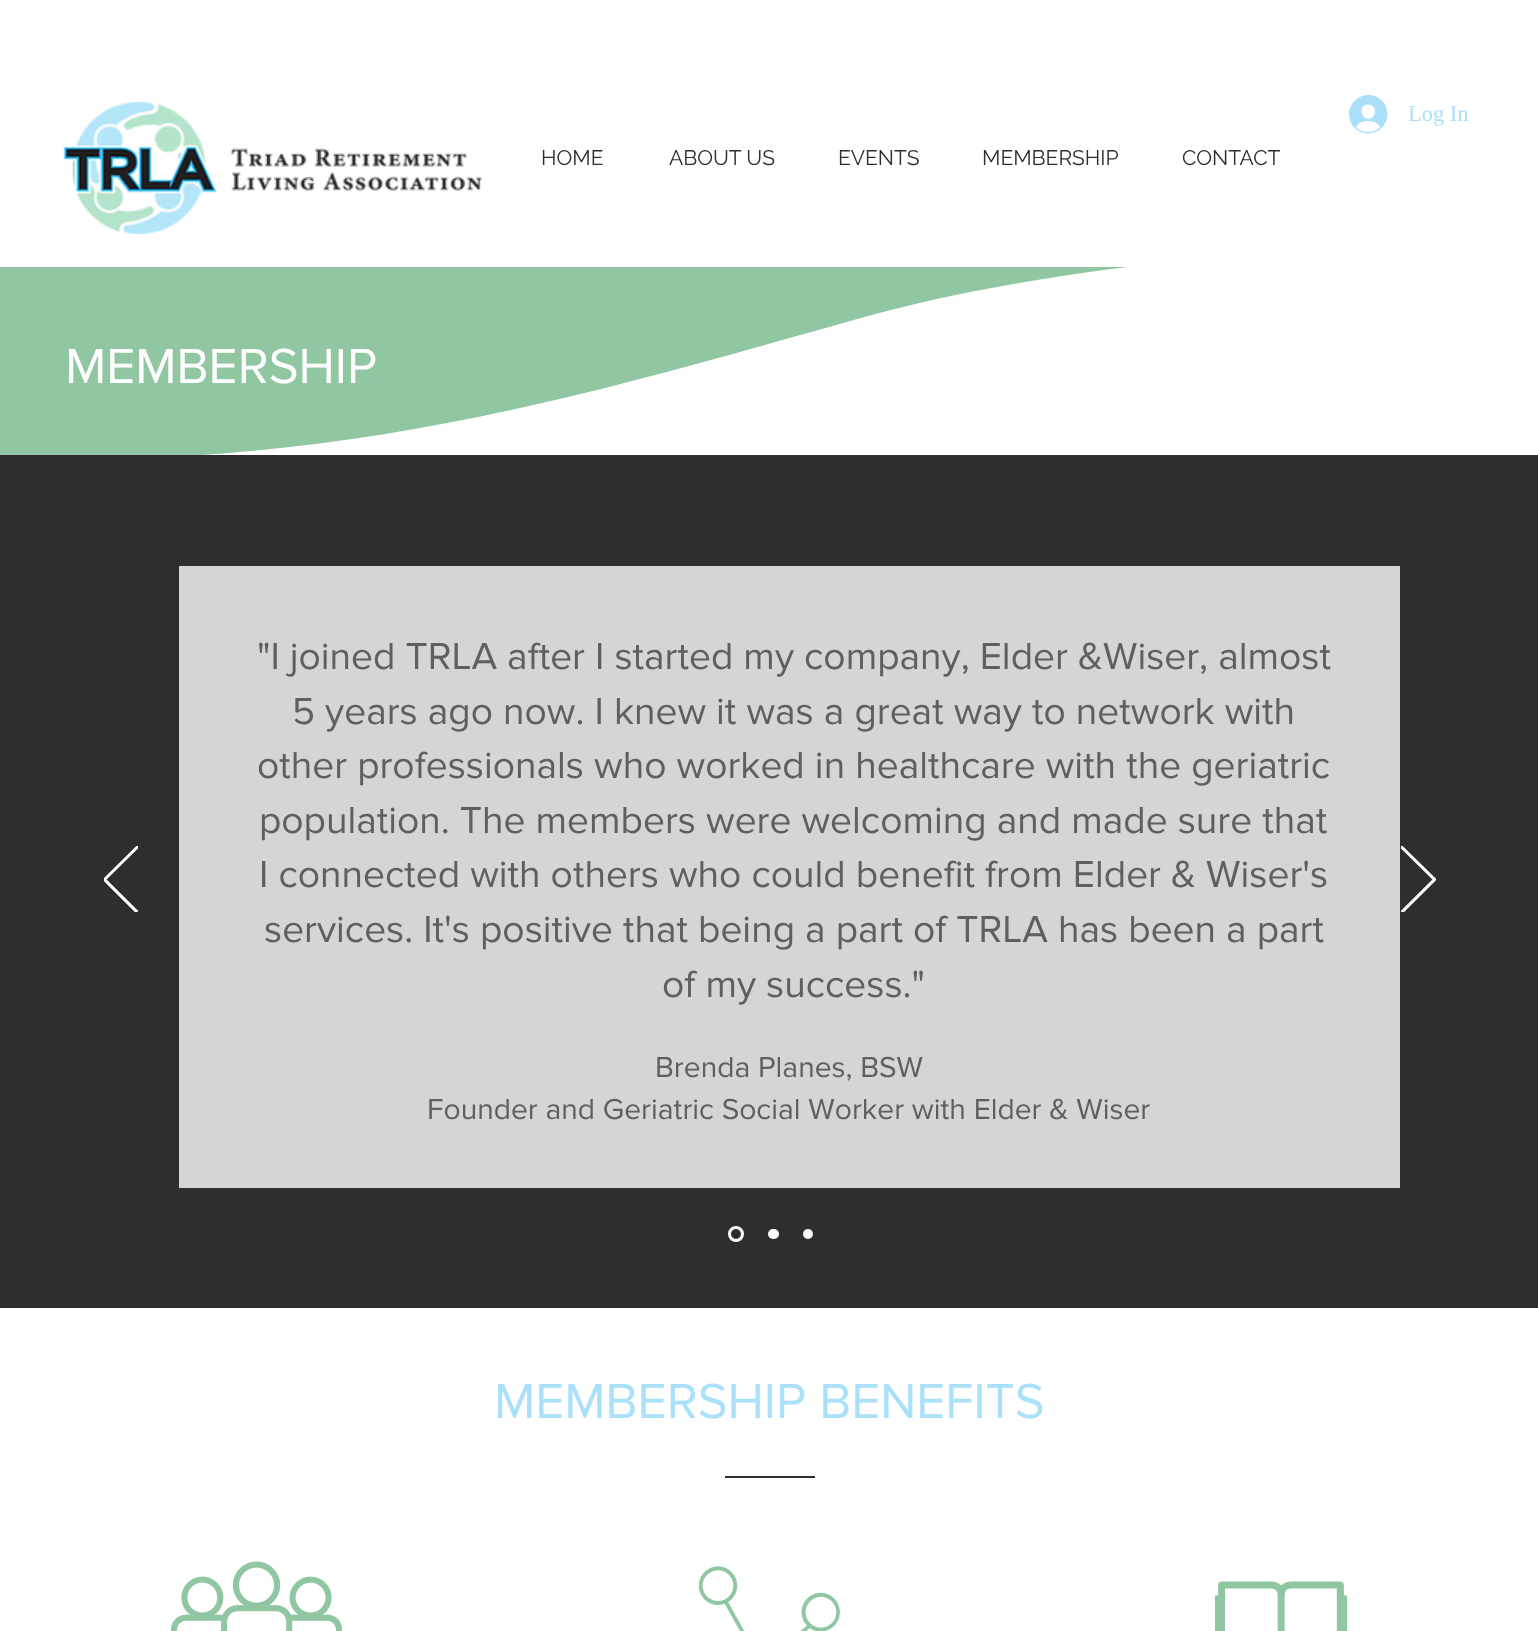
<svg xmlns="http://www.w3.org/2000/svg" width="1538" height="1631">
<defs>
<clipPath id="clip1"><rect x="104" y="846" width="34" height="66"/></clipPath>
<clipPath id="clip2"><rect x="1401" y="846" width="35" height="66"/></clipPath>
</defs>
<rect width="100%" height="100%" fill="#fff"/>
<image x="63" y="102" width="419" height="132" href="media/1.png"/>
<image x="1349" y="95" width="39" height="39" href="media/2.png"/>
<text x="1408" y="121" style="font-family:Liberation Serif;font-size:22.5px;fill:#aae0fa">Log In</text>
<text x="541" y="165" style="font-family:Raleway;font-size:21px;fill:#2f2e2e">HOME</text>
<text x="669" y="165" style="font-family:Raleway;font-size:21px;fill:#2f2e2e">ABOUT US</text>
<text x="838" y="165" style="font-family:Raleway;font-size:21px;fill:#2f2e2e">EVENTS</text>
<text x="982" y="165" style="font-family:Raleway;font-size:21px;fill:#2f2e2e">MEMBERSHIP</text>
<text x="1182" y="165" style="font-family:Raleway;font-size:21px;fill:#2f2e2e">CONTACT</text>
<rect y="267" width="1128" height="188" fill="#90c7a2"/>
<path d="M0 466v-4c365 0 554-58 868-146c278-77 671-74 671-74v224z" fill="#fff"/>
<text x="65" y="383" style="font-family:'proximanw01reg';font-size:51px;fill:#fff">MEMBERSHIP</text>
<rect y="455" width="1538" height="853" fill="#2f2e2e"/>
<g clip-path="url(#clip1)">
<path d="M137 913l-33.5-33.5l33.5-33l1 1l-32.5 32l32.5 32.5z" fill="none" stroke="#fff" stroke-width="1.6"/>
</g>
<rect x="179" y="566" width="1221" height="622" fill="#d6d5d5"/>
<text x="257" y="669" style="font-family:'proximanw01reg';font-size:39px;fill:#605e5e">"I joined TRLA after I started my company, Elder &amp;Wiser, almost</text>
<text x="292" y="724" style="font-family:'proximanw01reg';font-size:39px;fill:#605e5e">5 years ago now. I knew it was a great way to network with</text>
<text x="257" y="778" style="font-family:'proximanw01reg';font-size:39px;fill:#605e5e">other professionals who worked in healthcare with the geriatric</text>
<text x="259" y="833" style="font-family:'proximanw01reg';font-size:39px;fill:#605e5e">population. The members were welcoming and made sure that</text>
<text x="259" y="887" style="font-family:'proximanw01reg';font-size:39px;fill:#605e5e">I connected with others who could benefit from Elder &amp; Wiser's</text>
<text x="264" y="942" style="font-family:'proximanw01reg';font-size:39px;fill:#605e5e">services. It's positive that being a part of TRLA has been a part</text>
<text x="662" y="997" style="font-family:'proximanw01reg';font-size:39px;fill:#605e5e">of my success."</text>
<text x="655" y="1077" style="font-family:'proximanw01reg';font-size:30px;fill:#605e5e">Brenda Planes, BSW</text>
<text x="427" y="1119" style="font-family:'proximanw01reg';font-size:30px;fill:#605e5e">Founder and Geriatric Social Worker with Elder &amp; Wiser</text>
<g clip-path="url(#clip2)">
<path d="M1402 913l33.5-33.5l-33.5-33l-1 1l32.5 32l-32.5 32.5z" fill="none" stroke="#fff" stroke-width="1.6"/>
</g>
<circle cx="736" cy="1234" r="6.5" fill="none" stroke="#fff" stroke-width="3"/>
<rect x="768" y="1229" width="11" height="10" rx="5" fill="#fff"/>
<circle cx="808" cy="1234" r="5" fill="#fff"/>
<text x="494" y="1418" style="font-family:'proximanw01reg';font-size:51px;fill:#aae0fa">MEMBERSHIP BENEFITS</text>
<rect x="725" y="1476" width="90" height="2" fill="#2f2e2e"/>
<image x="171" y="1561" width="171" height="70" href="media/3.png"/>
<image x="698" y="1566" width="142" height="65" href="media/4.png"/>
<image x="1215" y="1581" width="132" height="50" href="media/5.png"/>
</svg>
